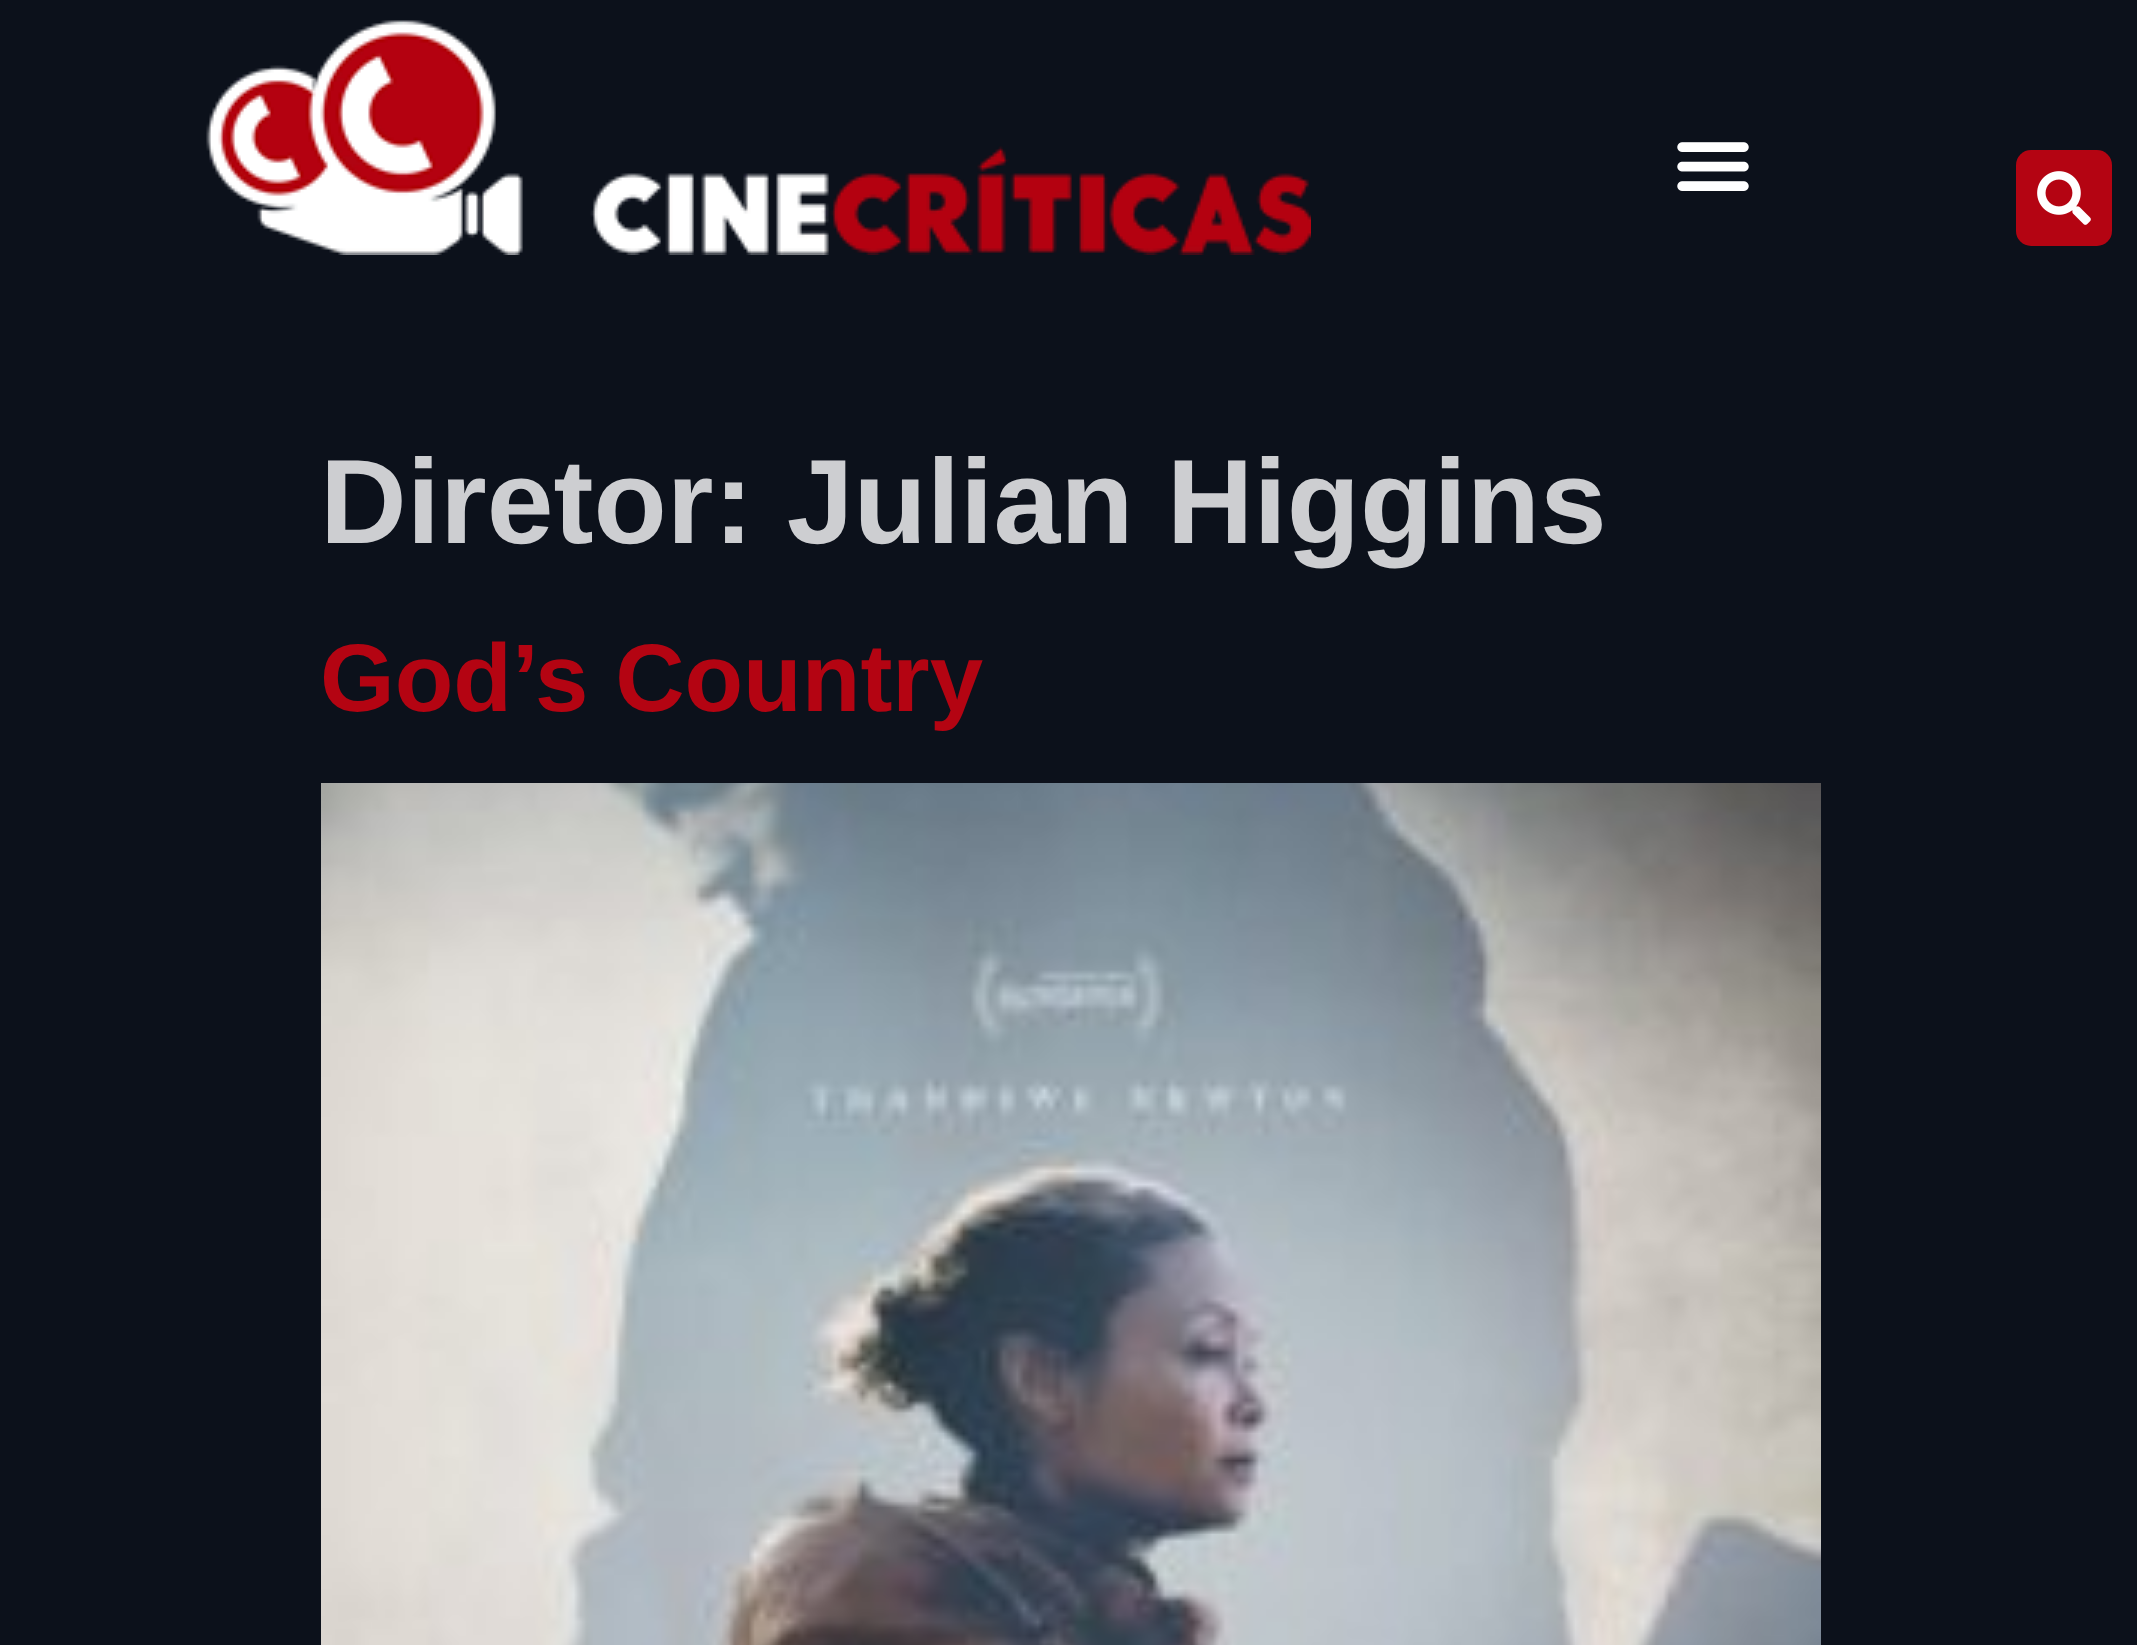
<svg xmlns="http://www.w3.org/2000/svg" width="2137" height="1645">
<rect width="100%" height="100%" fill="#0c111b"/>
<image x="206" y="20" width="1105" height="235" href="media/1.png"/>
<image x="1677" y="142" width="72" height="49" href="media/2.png"/>
<rect x="2016" y="150" width="96" height="96" rx="15" fill="#b40412"/>
<image x="2037" y="171" width="54" height="54" href="media/3.png"/>
<text x="320" y="543" style="font-family:Liberation Sans;font-size:120px;font-weight:bold;fill:#cdced1">Diretor: Julian Higgins</text>
<text x="320" y="711" style="font-family:Liberation Sans;font-size:96px;font-weight:bold;fill:#b40412">God’s Country</text>
<image x="321" y="783" width="1500" height="862" href="media/4.png"/>
</svg>
